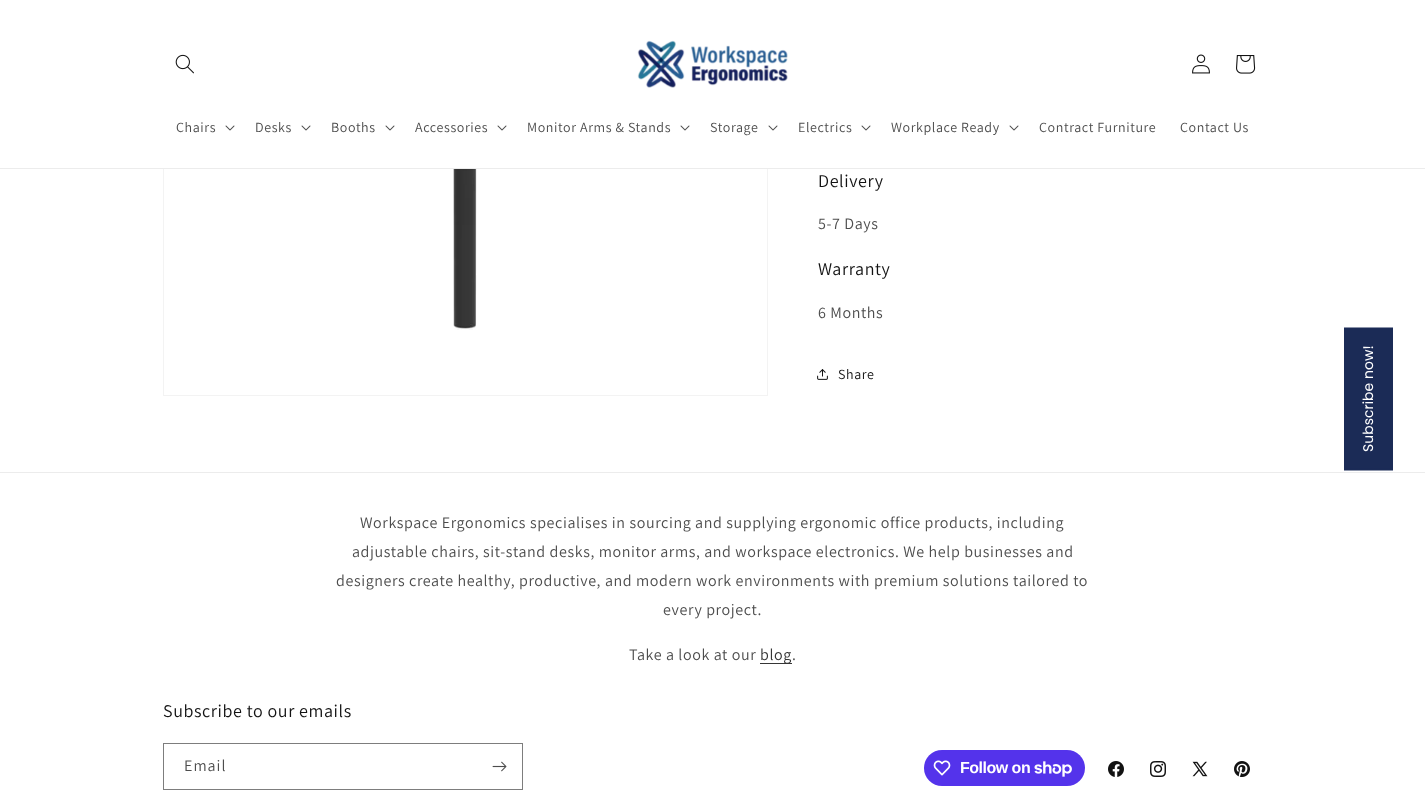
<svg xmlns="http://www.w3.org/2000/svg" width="1425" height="798">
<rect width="100%" height="100%" fill="#fff"/>
<rect x="163.5" y="-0.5" width="604" height="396" fill="none" stroke="#f3f3f3"/>
<rect x="163" width="605" height="168" fill="#fff"/>
<rect y="168" width="1425" height="1" fill="#ececec"/>
<image x="175" y="54" width="19" height="20" href="media/1.png"/>
<image x="637" y="40" width="151" height="48" href="media/2.png"/>
<image x="1192" y="54" width="18" height="20" href="media/3.png"/>
<image x="1236" y="55" width="20" height="19" href="media/4.png"/>
<text x="176" y="132" style="font-family:Assistant;font-size:14px;letter-spacing:0.6px;fill:#4d4d4d">Chairs</text>
<image x="225" y="125" width="10" height="6" href="media/5.png"/>
<text x="255" y="132" style="font-family:Assistant;font-size:14px;letter-spacing:0.6px;fill:#4d4d4d">Desks</text>
<image x="301" y="125" width="10" height="6" href="media/5.png"/>
<text x="331" y="132" style="font-family:Assistant;font-size:14px;letter-spacing:0.6px;fill:#4d4d4d">Booths</text>
<image x="385" y="125" width="10" height="6" href="media/5.png"/>
<text x="415" y="132" style="font-family:Assistant;font-size:14px;letter-spacing:0.6px;fill:#4d4d4d">Accessories</text>
<image x="497" y="125" width="10" height="6" href="media/5.png"/>
<text x="527" y="132" style="font-family:Assistant;font-size:14px;letter-spacing:0.6px;fill:#4d4d4d">Monitor Arms &amp; Stands</text>
<image x="680" y="125" width="10" height="6" href="media/5.png"/>
<text x="710" y="132" style="font-family:Assistant;font-size:14px;letter-spacing:0.6px;fill:#4d4d4d">Storage</text>
<image x="768" y="125" width="10" height="6" href="media/5.png"/>
<text x="798" y="132" style="font-family:Assistant;font-size:14px;letter-spacing:0.6px;fill:#4d4d4d">Electrics</text>
<image x="861" y="125" width="10" height="6" href="media/5.png"/>
<text x="891" y="132" style="font-family:Assistant;font-size:14px;letter-spacing:0.6px;fill:#4d4d4d">Workplace Ready</text>
<image x="1009" y="125" width="10" height="6" href="media/5.png"/>
<text x="1039" y="132" style="font-family:Assistant;font-size:14px;letter-spacing:0.6px;fill:#4d4d4d">Contract Furniture</text>
<text x="1180" y="132" style="font-family:Assistant;font-size:14px;letter-spacing:0.6px;fill:#4d4d4d">Contact Us</text>
<image x="453" y="169" width="24" height="161" href="media/6.png"/>
<text x="818" y="187" style="font-family:Assistant;font-size:18px;letter-spacing:0.6px;fill:#121212">Delivery</text>
<text x="818" y="229" style="font-family:Assistant;font-size:16px;letter-spacing:0.6px;fill:#4d4d4d">5-7 Days</text>
<text x="818" y="275" style="font-family:Assistant;font-size:18px;letter-spacing:0.6px;fill:#121212">Warranty</text>
<text x="818" y="318" style="font-family:Assistant;font-size:16px;letter-spacing:0.6px;fill:#4d4d4d">6 Months</text>
<image x="817" y="369" width="11" height="11" href="media/7.png"/>
<text x="838" y="379" style="font-family:Assistant;font-size:14px;letter-spacing:0.6px;fill:#121212">Share</text>
<rect x="1346" y="329" width="45" height="140" fill="#1b2b56"/>
<path d="M1345 469.5v-141h47v141z" fill="none" stroke="#1b2b56" stroke-width="2"/>
<text x="1373" y="452" transform="rotate(-90 1373 452)" style="font-family:Poppins;font-size:14px;fill:#fff">Subscribe now!</text>
<rect y="472" width="1425" height="1" fill="#ececec"/>
<text x="360" y="528" style="font-family:Assistant;font-size:16px;letter-spacing:0.6px;fill:#4d4d4d">Workspace Ergonomics specialises in sourcing and supplying ergonomic office products, including</text>
<text x="352" y="557" style="font-family:Assistant;font-size:16px;letter-spacing:0.6px;fill:#4d4d4d">adjustable chairs, sit-stand desks, monitor arms, and workspace electronics. We help businesses and</text>
<text x="336" y="586" style="font-family:Assistant;font-size:16px;letter-spacing:0.6px;fill:#4d4d4d">designers create healthy, productive, and modern work environments with premium solutions tailored to</text>
<text x="663" y="615" style="font-family:Assistant;font-size:16px;letter-spacing:0.6px;fill:#4d4d4d">every project.</text>
<text x="629" y="660" style="font-family:Assistant;font-size:16px;letter-spacing:0.6px;fill:#4d4d4d">Take a look at our</text>
<rect x="760" y="663" width="32" height="1" fill="#363636"/>
<text x="760" y="660" style="font-family:Assistant;font-size:16px;letter-spacing:0.6px;fill:#353535">blog</text>
<text x="792" y="660" style="font-family:Assistant;font-size:16px;letter-spacing:0.6px;fill:#4d4d4d">.</text>
<text x="163" y="717" style="font-family:Assistant;font-size:18px;letter-spacing:0.6px;fill:#121212">Subscribe to our emails</text>
<rect x="163.5" y="743.5" width="359" height="46" fill="none" stroke="#7d7d7d"/>
<text x="184" y="771" style="font-family:Assistant;font-size:16px;letter-spacing:1px;fill:#4d4d4d">Email</text>
<image x="492" y="761" width="15" height="11" href="media/8.png"/>
<rect x="924" y="750" width="161" height="36" rx="18" fill="#5433eb"/>
<image x="933" y="760" width="18" height="16" href="media/9.png"/>
<text x="960" y="773" style="font-family:Liberation Sans;font-size:16px;font-weight:bold;letter-spacing:-0.5px;fill:#fff">Follow on</text>
<image x="1034" y="761" width="38" height="16" href="media/10.png"/>
<image x="1108" y="761" width="16" height="16" href="media/11.png"/>
<image x="1150" y="761" width="16" height="16" href="media/12.png"/>
<image x="1192" y="761" width="16" height="16" href="media/13.png"/>
<image x="1234" y="761" width="16" height="16" href="media/14.png"/>
</svg>
